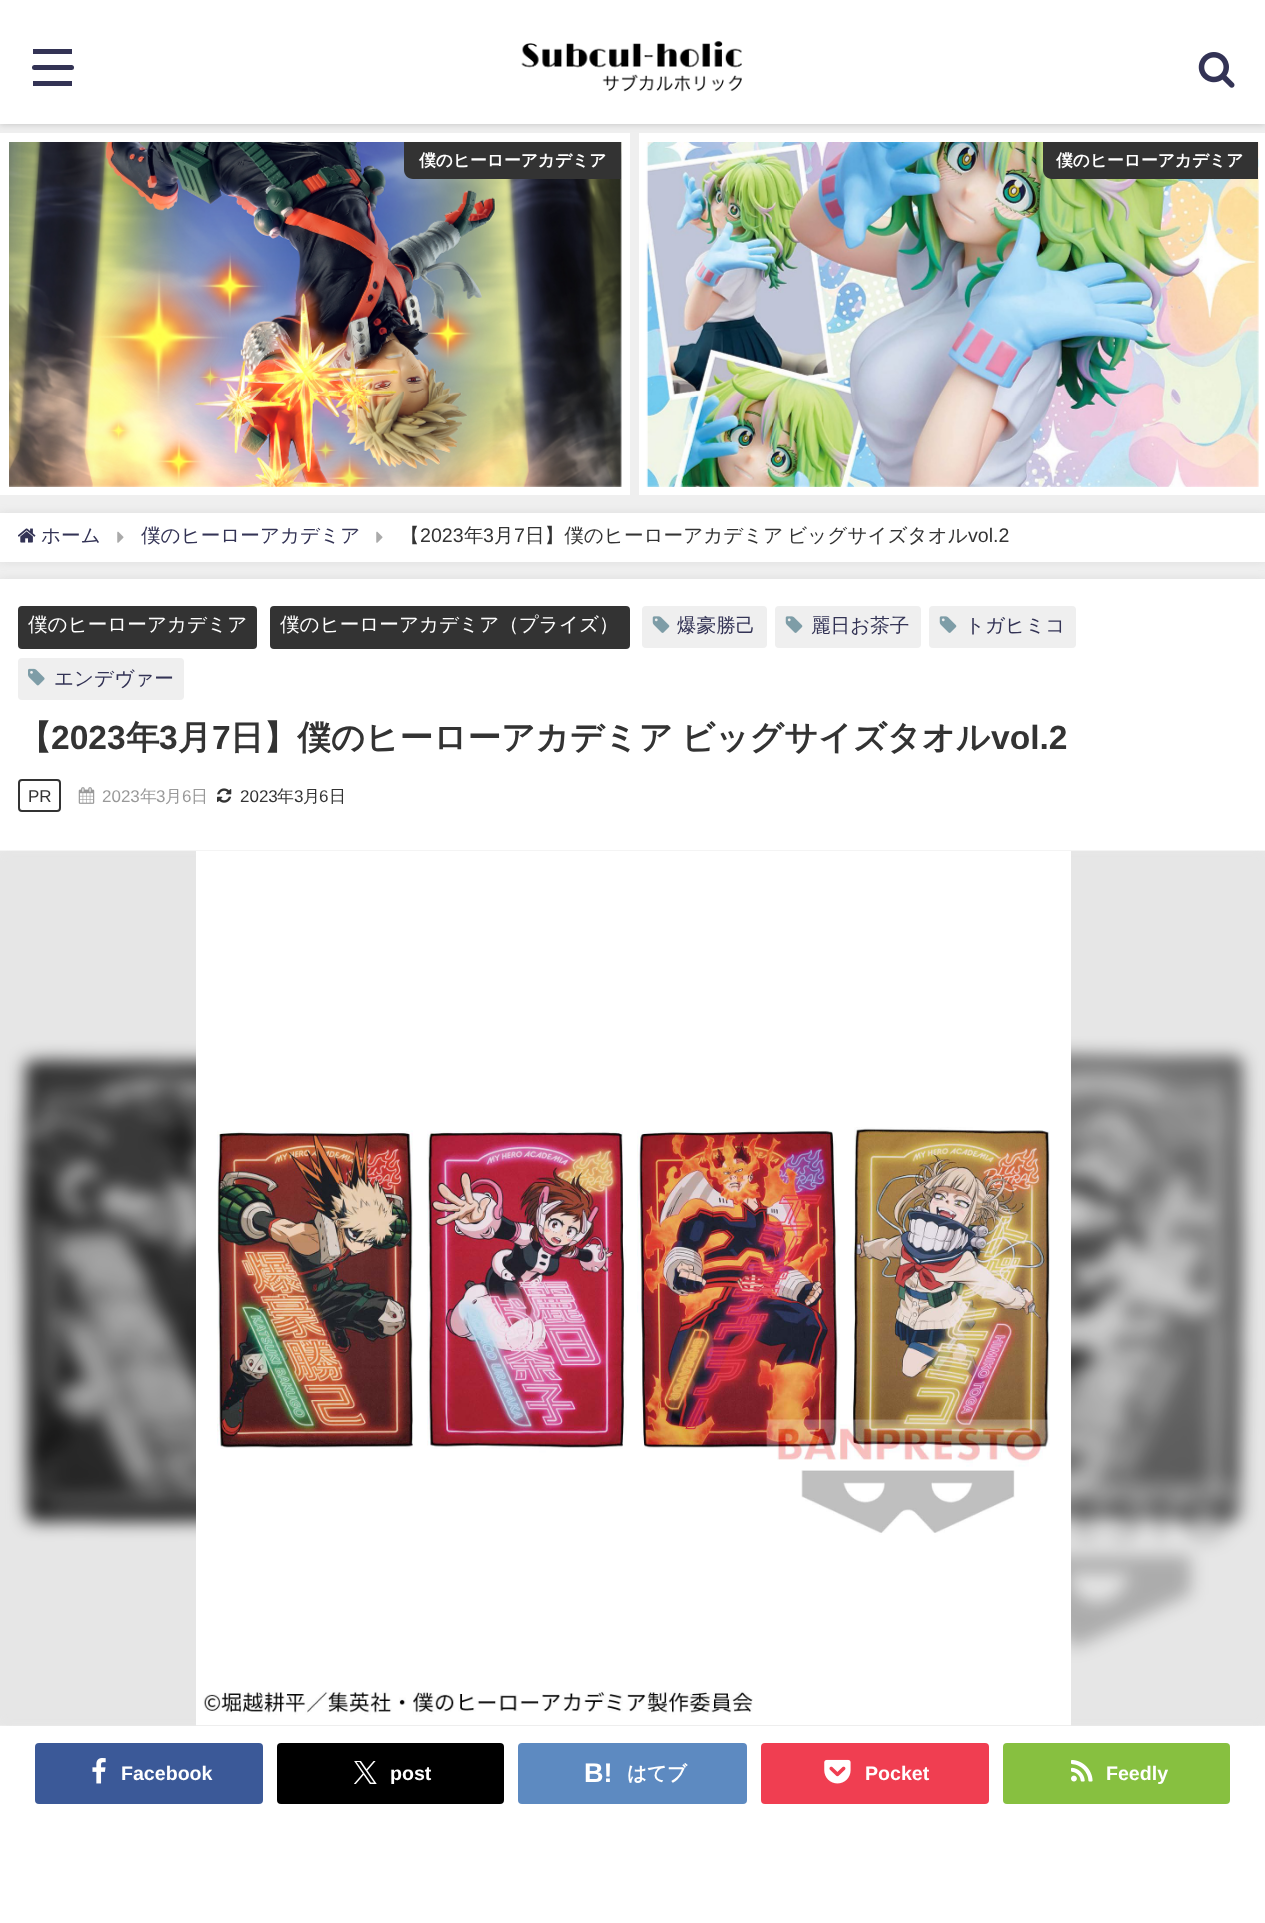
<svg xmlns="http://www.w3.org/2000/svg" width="1265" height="1923">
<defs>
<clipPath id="clip1"><rect x="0" y="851" width="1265" height="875"/></clipPath>
</defs>
<rect width="100%" height="100%" fill="#efefef"/>
<rect y="133" width="630" height="362" fill="#fff"/>
<rect x="639" y="133" width="626" height="362" fill="#fff"/>
<rect width="1265" height="124" fill="#00000033" filter="blur(3.5px)"/>
<rect width="1265" height="124" fill="#fff"/>
<rect x="33" y="49" width="39" height="5" fill="#335"/>
<rect x="32" y="65" width="42" height="5" rx="2.5" fill="#335"/>
<rect x="33" y="81" width="39" height="5" fill="#335"/>
<image x="521" y="40" width="221" height="52" href="media/1.png"/>
<image x="1198" y="52" width="37" height="36" href="media/2.png"/>
<image x="9" y="142" width="613" height="345" href="media/3.png"/>
<path d="M404 142h217v37h-208c-5 0-9-4-9-9z" fill="#333"/>
<text x="419" y="166" style="font-family:WenQuanYi Zen Hei;font-size:16.75px;font-weight:bold;fill:#fff">僕のヒーローアカデミア</text>
<image x="646" y="142" width="613" height="345" href="media/4.png"/>
<path d="M1043 142h215v37h-206c-5 0-9-4-9-9z" fill="#333"/>
<text x="1056" y="166" style="font-family:WenQuanYi Zen Hei;font-size:16.75px;font-weight:bold;fill:#fff">僕のヒーローアカデミア</text>
<rect y="513" width="1265" height="49" fill="#96969633" filter="blur(4.5px)"/>
<rect y="513" width="1265" height="49" fill="#fff"/>
<image x="18" y="528" width="18" height="15" href="media/5.png"/>
<text x="41" y="542" style="font-family:WenQuanYi Zen Hei;font-size:19.6px;font-weight:500;fill:#335">ホーム</text>
<image x="117" y="531" width="7" height="12" href="media/6.png"/>
<text x="141" y="542" style="font-family:WenQuanYi Zen Hei;font-size:19.6px;font-weight:500;fill:#335">僕のヒーローアカデミア</text>
<image x="376" y="531" width="7" height="12" href="media/6.png"/>
<text x="400" y="542" style="font-family:WenQuanYi Zen Hei;font-size:19.6px;font-weight:500;fill:#333">【</text>
<text x="420" y="542" style="font-family:Liberation Sans;font-size:19.6px;fill:#333">2023</text>
<text x="464" y="542" style="font-family:WenQuanYi Zen Hei;font-size:19.6px;font-weight:500;fill:#333">年</text>
<text x="483" y="542" style="font-family:Liberation Sans;font-size:19.6px;fill:#333">3</text>
<text x="494" y="542" style="font-family:WenQuanYi Zen Hei;font-size:19.6px;font-weight:500;fill:#333">月</text>
<text x="514" y="542" style="font-family:Liberation Sans;font-size:19.6px;fill:#333">7</text>
<text x="525" y="542" word-spacing="-2" style="font-family:WenQuanYi Zen Hei;font-size:19.6px;font-weight:500;fill:#333">日】僕のヒーローアカデミア ビッグサイズタオル</text>
<text x="968" y="542" style="font-family:Liberation Sans;font-size:19.6px;fill:#333">vol.2</text>
<rect y="579" width="1265" height="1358" fill="#96969633" filter="blur(4.5px)"/>
<rect y="579" width="1265" height="1344" fill="#fff"/>
<rect x="18" y="606" width="239" height="43" rx="4" fill="#333"/>
<text x="28" y="631" style="font-family:WenQuanYi Zen Hei;font-size:19.6px;font-weight:500;fill:#fff">僕のヒーローアカデミア</text>
<rect x="270" y="606" width="360" height="43" rx="4" fill="#333"/>
<text x="280" y="631" style="font-family:WenQuanYi Zen Hei;font-size:19.6px;font-weight:500;fill:#fff">僕のヒーローアカデミア（プライズ）</text>
<rect x="642" y="606" width="125" height="42" rx="4" fill="#efefef"/>
<image x="652" y="616" width="18" height="17" href="media/7.png"/>
<text x="677" y="632" style="font-family:WenQuanYi Zen Hei;font-size:19.6px;font-weight:500;fill:#335">爆豪勝己</text>
<rect x="775" y="606" width="146" height="42" rx="4" fill="#efefef"/>
<image x="785" y="616" width="18" height="17" href="media/7.png"/>
<text x="811" y="632" style="font-family:WenQuanYi Zen Hei;font-size:19.6px;font-weight:500;fill:#335">麗日お茶子</text>
<rect x="929" y="606" width="147" height="42" rx="4" fill="#efefef"/>
<image x="939" y="616" width="18" height="17" href="media/7.png"/>
<text x="965" y="632" style="font-family:WenQuanYi Zen Hei;font-size:19.6px;font-weight:500;fill:#335">トガヒミコ</text>
<rect x="18" y="658" width="166" height="42" rx="4" fill="#efefef"/>
<image x="28" y="668" width="17" height="18" href="media/8.png"/>
<text x="54" y="685" style="font-family:WenQuanYi Zen Hei;font-size:19.6px;font-weight:500;fill:#335">エンデヴァー</text>
<text x="18" y="749" style="font-family:WenQuanYi Zen Hei;font-size:33.6px;font-weight:bold;fill:#333">【</text>
<text x="51" y="749" style="font-family:Liberation Sans;font-size:33.6px;font-weight:bold;fill:#333">2023</text>
<text x="126" y="749" style="font-family:WenQuanYi Zen Hei;font-size:33.6px;font-weight:bold;fill:#333">年</text>
<text x="159" y="749" style="font-family:Liberation Sans;font-size:33.6px;font-weight:bold;fill:#333">3</text>
<text x="178" y="749" style="font-family:WenQuanYi Zen Hei;font-size:33.6px;font-weight:bold;fill:#333">月</text>
<text x="212" y="749" style="font-family:Liberation Sans;font-size:33.6px;font-weight:bold;fill:#333">7</text>
<text x="230" y="749" word-spacing="-2" style="font-family:WenQuanYi Zen Hei;font-size:33.6px;font-weight:bold;fill:#333">日】僕のヒーローアカデミア ビッグサイズタオル</text>
<text x="991" y="749" style="font-family:Liberation Sans;font-size:33.6px;font-weight:bold;fill:#333">vol.2</text>
<rect x="19" y="780" width="41" height="31" rx="3" fill="none" stroke="#333" stroke-width="2"/>
<text x="28" y="802" style="font-family:Liberation Sans;font-size:17px;fill:#333">PR</text>
<image x="78" y="787" width="17" height="17" href="media/9.png"/>
<text x="102" y="802" style="font-family:Liberation Sans;font-size:17px;fill:#999">2023</text>
<text x="140" y="802" style="font-family:WenQuanYi Zen Hei;font-size:17px;font-weight:500;fill:#999">年</text>
<text x="156" y="802" style="font-family:Liberation Sans;font-size:17px;fill:#999">3</text>
<text x="165" y="802" style="font-family:WenQuanYi Zen Hei;font-size:17px;font-weight:500;fill:#999">月</text>
<text x="182" y="802" style="font-family:Liberation Sans;font-size:17px;fill:#999">6</text>
<text x="191" y="802" style="font-family:WenQuanYi Zen Hei;font-size:17px;font-weight:500;fill:#999">日</text>
<image x="217" y="788" width="15" height="15" href="media/10.png"/>
<text x="240" y="802" style="font-family:Liberation Sans;font-size:17px;fill:#333">2023</text>
<text x="277" y="802" style="font-family:WenQuanYi Zen Hei;font-size:17px;font-weight:500;fill:#333">年</text>
<text x="294" y="802" style="font-family:Liberation Sans;font-size:17px;fill:#333">3</text>
<text x="303" y="802" style="font-family:WenQuanYi Zen Hei;font-size:17px;font-weight:500;fill:#333">月</text>
<text x="319" y="802" style="font-family:Liberation Sans;font-size:17px;fill:#333">6</text>
<text x="329" y="802" style="font-family:WenQuanYi Zen Hei;font-size:17px;font-weight:500;fill:#333">日</text>
<g clip-path="url(#clip1)">
<rect x="-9" y="842" width="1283" height="892" fill="#e5e5e5" filter="blur(9px)"/>
</g>
<image x="0" y="850" width="1265" height="875" href="media/11.png"/>
<image x="196" y="851" width="875" height="875" href="media/12.png"/>
<rect x="35" y="1743" width="228" height="61" rx="4" fill="#3b5998"/>
<image x="92" y="1758" width="14" height="26" href="media/13.png"/>
<text x="121" y="1780" style="font-family:Liberation Sans;font-size:19.6px;font-weight:bold;fill:#fff">Facebook</text>
<rect x="277" y="1743" width="227" height="61" rx="4" fill="#000"/>
<image x="354" y="1761" width="23" height="23" href="media/14.png"/>
<text x="390" y="1780" style="font-family:Liberation Sans;font-size:19.6px;font-weight:bold;fill:#fff">post</text>
<rect x="518" y="1743" width="229" height="61" rx="4" fill="#5d8ac1"/>
<text x="584" y="1782" style="font-family:Liberation Sans;font-size:27px;font-weight:bold;fill:#fff">B!</text>
<text x="627" y="1780" style="font-family:WenQuanYi Zen Hei;font-size:19.6px;font-weight:bold;fill:#fff">はてブ</text>
<rect x="761" y="1743" width="228" height="61" rx="4" fill="#f03e51"/>
<image x="824" y="1759" width="27" height="25" href="media/15.png"/>
<text x="865" y="1780" style="font-family:Liberation Sans;font-size:19.6px;font-weight:bold;fill:#fff">Pocket</text>
<rect x="1003" y="1743" width="227" height="61" rx="4" fill="#87c040"/>
<image x="1071" y="1760" width="22" height="22" href="media/16.png"/>
<text x="1106" y="1780" style="font-family:Liberation Sans;font-size:19.6px;font-weight:bold;fill:#fff">Feedly</text>
</svg>
